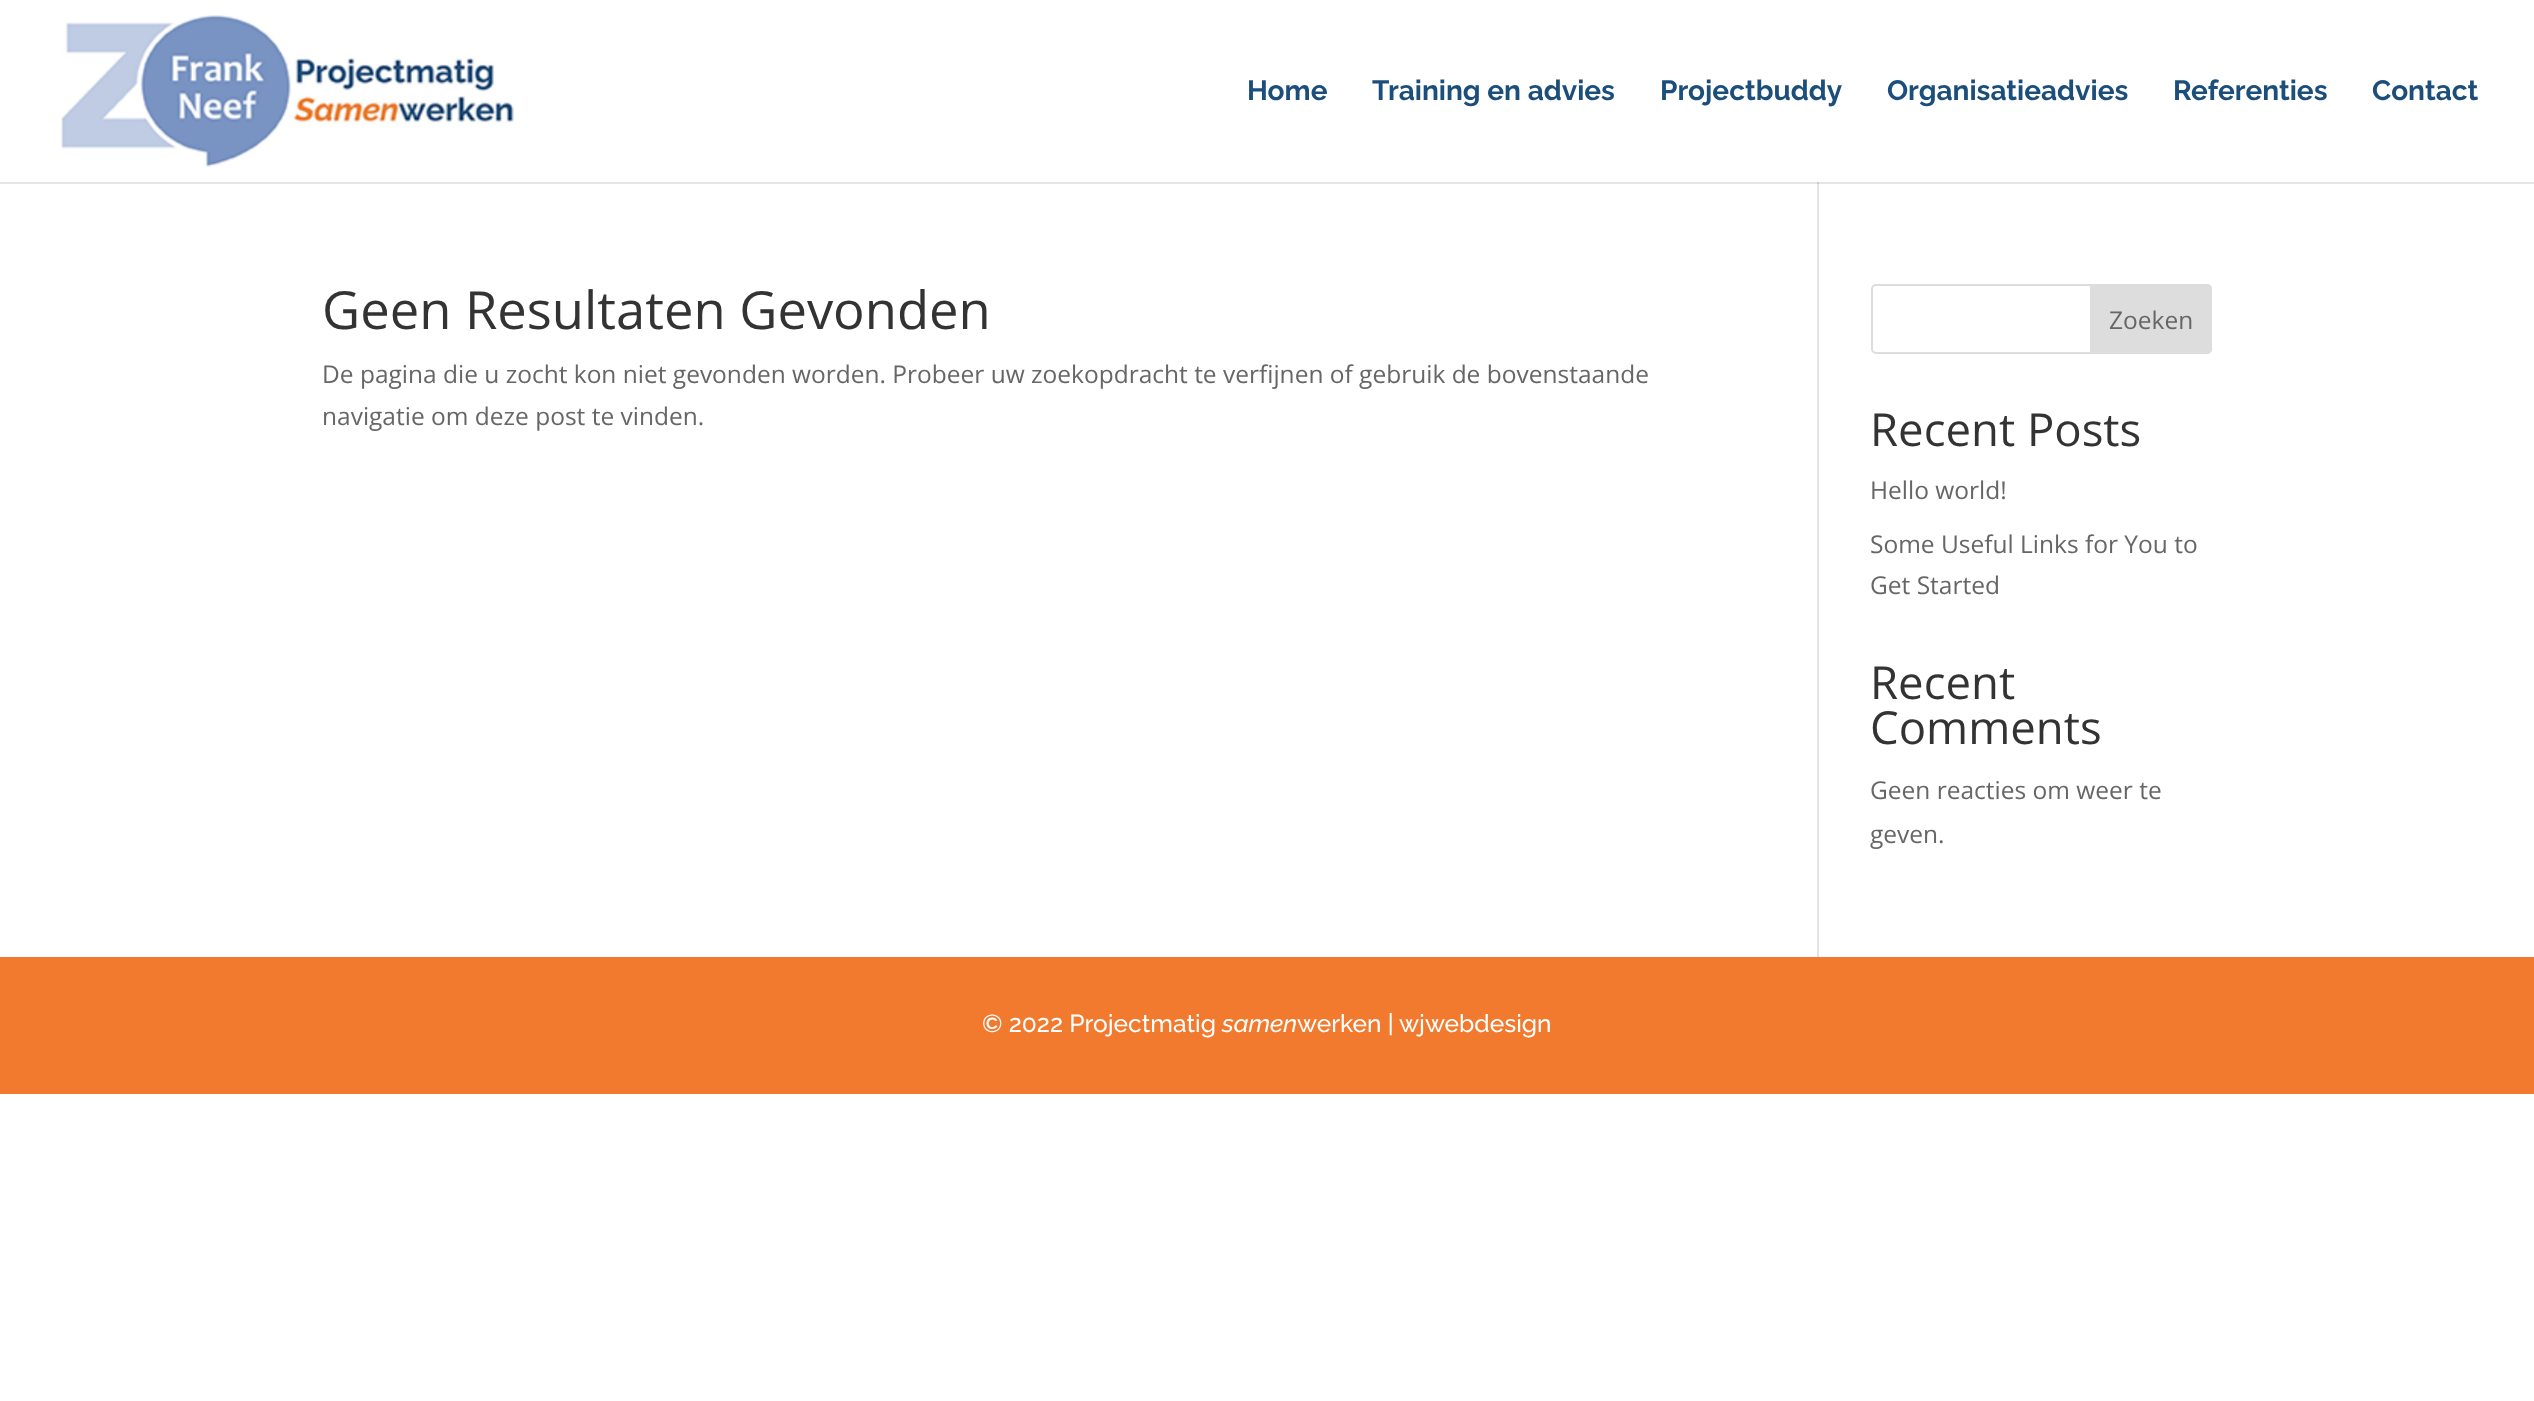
<svg xmlns="http://www.w3.org/2000/svg" width="2534" height="1401">
<rect width="100%" height="100%" fill="#fff"/>
<rect y="182" width="2534" height="2" fill="#e6e6e6"/>
<image x="61" y="15" width="453" height="152" href="media/1.png"/>
<text x="1247" y="100" style="font-family:'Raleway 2';font-size:28px;font-weight:100;fill:#1c4e7b">Home</text>
<text x="1372" y="100" style="font-family:'Raleway 2';font-size:28px;font-weight:100;fill:#1c4e7b">Training en advies</text>
<text x="1660" y="100" style="font-family:'Raleway 2';font-size:28px;font-weight:100;fill:#1c4e7b">Projectbuddy</text>
<text x="1887" y="100" style="font-family:'Raleway 2';font-size:28px;font-weight:100;fill:#1c4e7b">Organisatieadvies</text>
<text x="2173" y="100" style="font-family:'Raleway 2';font-size:28px;font-weight:100;fill:#1c4e7b">Referenties</text>
<text x="2372" y="100" style="font-family:'Raleway 2';font-size:28px;font-weight:100;fill:#1c4e7b">Contact</text>
<rect x="1817" y="182" width="2" height="775" fill="#e2e2e2"/>
<rect x="1817" y="182" width="2" height="2" fill="#cbcbcb"/>
<text x="322" y="329" style="font-family:Open Sans;font-size:52.5px;fill:#333">Geen Resultaten Gevonden</text>
<text x="322" y="383" style="font-family:Open Sans;font-size:24.5px;fill:#666">De pagina die u zocht kon niet gevonden worden. Probeer uw zoekopdracht te verfijnen of gebruik de bovenstaande</text>
<text x="322" y="425" style="font-family:Open Sans;font-size:24.5px;fill:#666">navigatie om deze post te vinden.</text>
<rect x="1872" y="285" width="339" height="68" rx="4" fill="none" stroke="#ddd" stroke-width="2"/>
<path d="M2091 285h116c2 0 4 2 4 4v60c0 2-2 4-4 4h-116z" fill="#ddd" stroke="#ddd" stroke-width="2"/>
<text x="2109" y="329" style="font-family:Open Sans;font-size:24.5px;fill:#666">Zoeken</text>
<text x="1870" y="446" style="font-family:Open Sans;font-size:45.5px;fill:#333">Recent Posts</text>
<text x="1870" y="499" style="font-family:Open Sans;font-size:24.5px;fill:#666">Hello world!</text>
<text x="1870" y="553" style="font-family:Open Sans;font-size:24.5px;fill:#666">Some Useful Links for You to</text>
<text x="1870" y="594" style="font-family:Open Sans;font-size:24.5px;fill:#666">Get Started</text>
<text x="1870" y="699" style="font-family:Open Sans;font-size:45.5px;fill:#333">Recent</text>
<text x="1870" y="744" style="font-family:Open Sans;font-size:45.5px;fill:#333">Comments</text>
<text x="1870" y="799" style="font-family:Open Sans;font-size:24.5px;fill:#666">Geen reacties om weer te</text>
<text x="1870" y="843" style="font-family:Open Sans;font-size:24.5px;fill:#666">geven.</text>
<rect y="957" width="2534" height="137" fill="#f27a2e"/>
<text x="982" y="1032" style="font-family:Raleway;font-size:24.5px;font-weight:100;fill:#fff">© 2022 Projectmatig</text>
<text x="1222" y="1032" style="font-family:Raleway;font-size:24.5px;font-weight:100;font-style:italic;fill:#fff">samen</text>
<text x="1297" y="1032" style="font-family:Raleway;font-size:24.5px;font-weight:100;fill:#fff">werken |</text>
<text x="1399" y="1032" style="font-family:Raleway;font-size:24.5px;font-weight:100;fill:#fff">wjwebdesign</text>
</svg>
